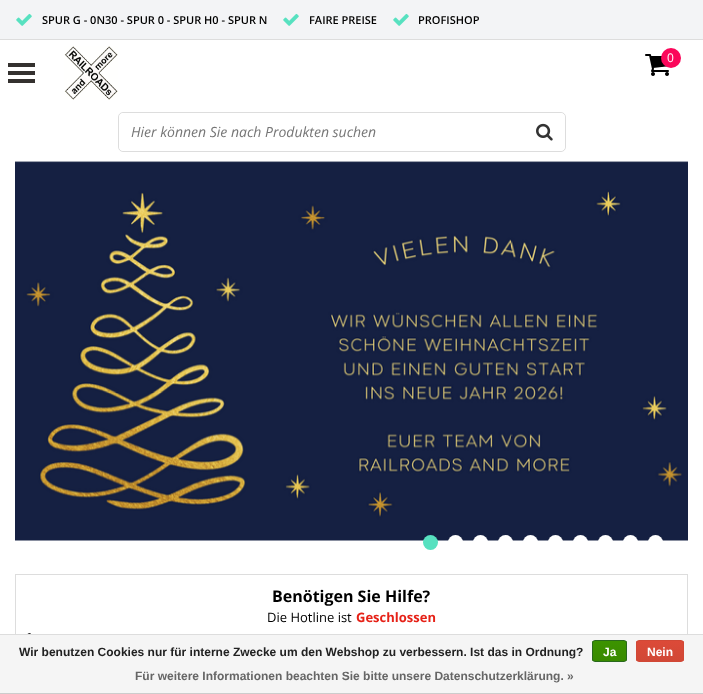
<svg xmlns="http://www.w3.org/2000/svg" width="703" height="694">
<defs>
<clipPath id="clip1"><rect x="592" y="640" width="35" height="22" rx="3"/></clipPath>
<linearGradient id="g1" gradientUnits="userSpaceOnUse" x1="610" y1="641" x2="610" y2="661"><stop offset="0" stop-color="#3c9300"/><stop offset="1" stop-color="#398a00"/></linearGradient>
<clipPath id="clip2"><rect x="636" y="640" width="48" height="22" rx="3"/></clipPath>
<linearGradient id="g2" gradientUnits="userSpaceOnUse" x1="660" y1="641" x2="660" y2="661"><stop offset="0" stop-color="#dc4a38"/><stop offset="1" stop-color="#d14836"/></linearGradient>
</defs>
<rect width="100%" height="100%" fill="#fff"/>
<rect width="703" height="39" fill="#f3f4f6"/>
<rect y="39" width="703" height="1" fill="#ddd"/>
<image x="16" y="13" width="16" height="13" href="media/1.png"/>
<text x="42" y="24" style="font-family:Open Sans;font-size:11px;font-weight:600;fill:#000">SPUR G - 0N30 - SPUR 0 - SPUR H0 - SPUR N</text>
<image x="283" y="13" width="16" height="13" href="media/1.png"/>
<text x="309" y="24" style="font-family:Open Sans;font-size:11px;font-weight:600;fill:#000">FAIRE PREISE</text>
<image x="393" y="13" width="16" height="13" href="media/1.png"/>
<text x="418" y="24" style="font-family:Open Sans;font-size:11px;font-weight:600;fill:#000">PROFISHOP</text>
<image x="64" y="46" width="54" height="54" href="media/2.png"/>
<image x="645" y="54" width="24" height="22" href="media/3.png"/>
<circle cx="671" cy="58" r="10" fill="#fb065a"/>
<text x="667" y="62" style="font-family:Open Sans;font-size:12px;fill:#fff">0</text>
<rect x="8" y="63" width="27" height="4" fill="#34312f"/>
<rect x="8" y="71" width="27" height="4" fill="#34312f"/>
<rect x="8" y="79" width="27" height="4" fill="#34312f"/>
<rect x="118.5" y="112.5" width="447" height="39" rx="4.5" fill="none" stroke="#ddd"/>
<rect x="119" y="113" width="446" height="38" rx="5" fill="#fff"/>
<text x="131" y="137" style="font-family:Open Sans;font-size:14px;font-style:italic;fill:#757575">Hier können Sie nach Produkten suchen</text>
<image x="536" y="123" width="17" height="18" href="media/4.png"/>
<image x="15" y="161" width="673" height="380" href="media/5.png"/>
<circle cx="430.5" cy="542.5" r="7.5" fill="#57e1c0"/>
<circle cx="455.5" cy="542.5" r="7.5" fill="#fff"/>
<circle cx="480.5" cy="542.5" r="7.5" fill="#fff"/>
<circle cx="505.5" cy="542.5" r="7.5" fill="#fff"/>
<circle cx="530.5" cy="542.5" r="7.5" fill="#fff"/>
<circle cx="555.5" cy="542.5" r="7.5" fill="#fff"/>
<circle cx="580.5" cy="542.5" r="7.5" fill="#fff"/>
<circle cx="605.5" cy="542.5" r="7.5" fill="#fff"/>
<circle cx="630.5" cy="542.5" r="7.5" fill="#fff"/>
<circle cx="655.5" cy="542.5" r="7.5" fill="#fff"/>
<rect x="15.5" y="574.5" width="672" height="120" fill="none" stroke="#ddd"/>
<text x="272" y="602" style="font-family:Open Sans;font-size:16px;font-weight:bold;fill:#000">Benötigen Sie Hilfe?</text>
<text x="267" y="622" style="font-family:Open Sans;font-size:13px;fill:#000">Die Hotline ist</text>
<text x="356" y="622" style="font-family:Open Sans;font-size:13px;font-weight:bold;fill:#e62117">Geschlossen</text>
<image x="27" y="633" width="4" height="1" href="media/6.png"/>
<rect y="635" width="703" height="58" fill="#f5f5f5"/>
<rect y="634" width="703" height="1" fill="#ddd"/>
<rect y="693" width="703" height="1" fill="#ccc"/>
<text x="19" y="656" style="font-family:Liberation Sans;font-size:12px;font-weight:bold;fill:#222">Wir benutzen Cookies nur für interne Zwecke um den Webshop zu verbessern. Ist das in Ordnung?</text>
<g clip-path="url(#clip1)">
<rect x="592" y="641" width="35" height="20" fill="url(#g1)"/>
</g>
<rect x="592.5" y="640.5" width="34" height="21" rx="2.5" fill="none" stroke="#29691d"/>
<text x="603" y="656" style="font-family:Liberation Sans;font-size:12px;font-weight:bold;fill:#fff">Ja</text>
<g clip-path="url(#clip2)">
<rect x="636" y="641" width="48" height="20" fill="url(#g2)"/>
</g>
<rect x="636.5" y="640.5" width="47" height="21" rx="2.5" fill="none" stroke="#d14836"/>
<text x="647" y="656" style="font-family:Liberation Sans;font-size:12px;font-weight:bold;fill:#fff">Nein</text>
<text x="135" y="680" style="font-family:Liberation Sans;font-size:12px;font-weight:bold;fill:#666">Für weitere Informationen beachten Sie bitte unsere Datenschutzerklärung. »</text>
</svg>
